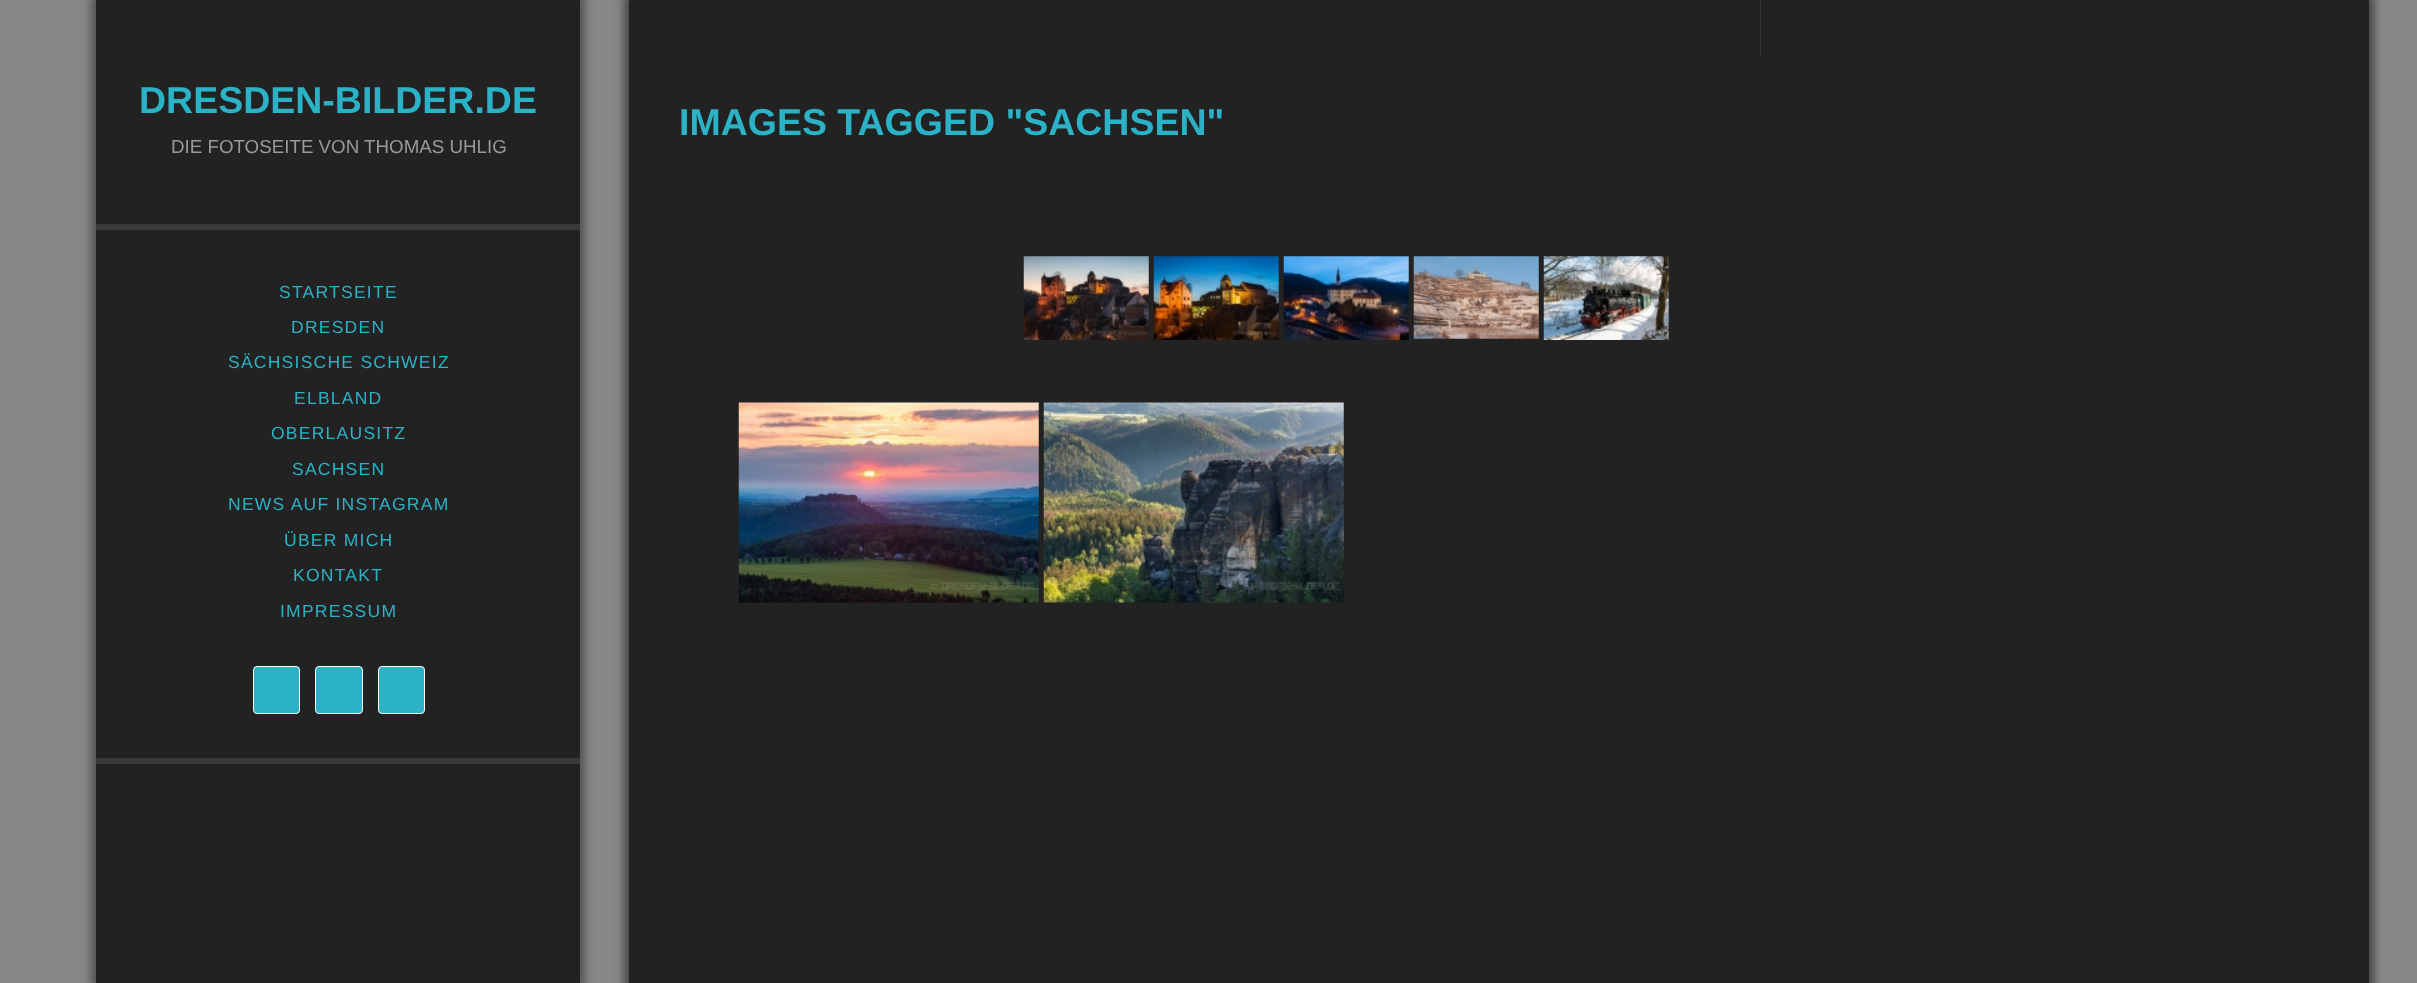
<svg xmlns="http://www.w3.org/2000/svg" width="2417" height="983">
<rect width="100%" height="100%" fill="#888"/>
<rect x="91" y="-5" width="494" height="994" fill="#00000066" filter="blur(5px)"/>
<rect x="96" width="484" height="983" fill="#222"/>
<text x="139" y="113" style="font-family:Liberation Sans;font-size:37.5px;font-weight:bold;fill:#2bb2c6">DRESDEN-BILDER.DE</text>
<text x="171" y="153" style="font-family:Liberation Sans;font-size:18.75px;fill:#999">DIE FOTOSEITE VON THOMAS UHLIG</text>
<rect x="96" y="224" width="484" height="6" fill="#393939"/>
<rect x="96" y="758" width="484" height="6" fill="#393939"/>
<text x="279" y="298" style="font-family:Liberation Sans;font-size:17.5px;letter-spacing:1.25px;fill:#2bb2c6">STARTSEITE</text>
<text x="291" y="333" style="font-family:Liberation Sans;font-size:17.5px;letter-spacing:1.25px;fill:#2bb2c6">DRESDEN</text>
<text x="228" y="368" style="font-family:Liberation Sans;font-size:17.5px;letter-spacing:1.25px;fill:#2bb2c6">SÄCHSISCHE SCHWEIZ</text>
<text x="294" y="404" style="font-family:Liberation Sans;font-size:17.5px;letter-spacing:1.25px;fill:#2bb2c6">ELBLAND</text>
<text x="271" y="439" style="font-family:Liberation Sans;font-size:17.5px;letter-spacing:1.25px;fill:#2bb2c6">OBERLAUSITZ</text>
<text x="292" y="475" style="font-family:Liberation Sans;font-size:17.5px;letter-spacing:1.25px;fill:#2bb2c6">SACHSEN</text>
<text x="228" y="510" style="font-family:Liberation Sans;font-size:17.5px;letter-spacing:1.25px;fill:#2bb2c6">NEWS AUF INSTAGRAM</text>
<text x="284" y="546" style="font-family:Liberation Sans;font-size:17.5px;letter-spacing:1.25px;fill:#2bb2c6">ÜBER MICH</text>
<text x="293" y="581" style="font-family:Liberation Sans;font-size:17.5px;letter-spacing:1.25px;fill:#2bb2c6">KONTAKT</text>
<text x="280" y="617" style="font-family:Liberation Sans;font-size:17.5px;letter-spacing:1.25px;fill:#2bb2c6">IMPRESSUM</text>
<rect x="253.5" y="666.5" width="46" height="47" rx="3.5" fill="#2bb2c6" stroke="#fff"/>
<rect x="315.5" y="666.5" width="47" height="47" rx="3.5" fill="#2bb2c6" stroke="#fff"/>
<rect x="378.5" y="666.5" width="46" height="47" rx="3.5" fill="#2bb2c6" stroke="#fff"/>
<rect x="624" y="-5" width="1750" height="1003" fill="#00000080" filter="blur(5px)"/>
<rect x="629" width="1740" height="983" fill="#222"/>
<rect x="1760" width="1" height="56" fill="#333"/>
<text x="679" y="135" style="font-family:Liberation Sans;font-size:37.5px;font-weight:bold;fill:#2bb2c6">IMAGES TAGGED "SACHSEN"</text>
<image x="1023" y="256" width="126" height="84" href="media/1.png"/>
<image x="1153" y="256" width="126" height="84" href="media/2.png"/>
<image x="1283" y="256" width="126" height="84" href="media/3.png"/>
<image x="1413" y="256" width="126" height="83" href="media/4.png"/>
<image x="1543" y="256" width="126" height="84" href="media/5.png"/>
<image x="738" y="402" width="301" height="201" href="media/6.png"/>
<image x="1043" y="402" width="301" height="201" href="media/7.png"/>
</svg>
